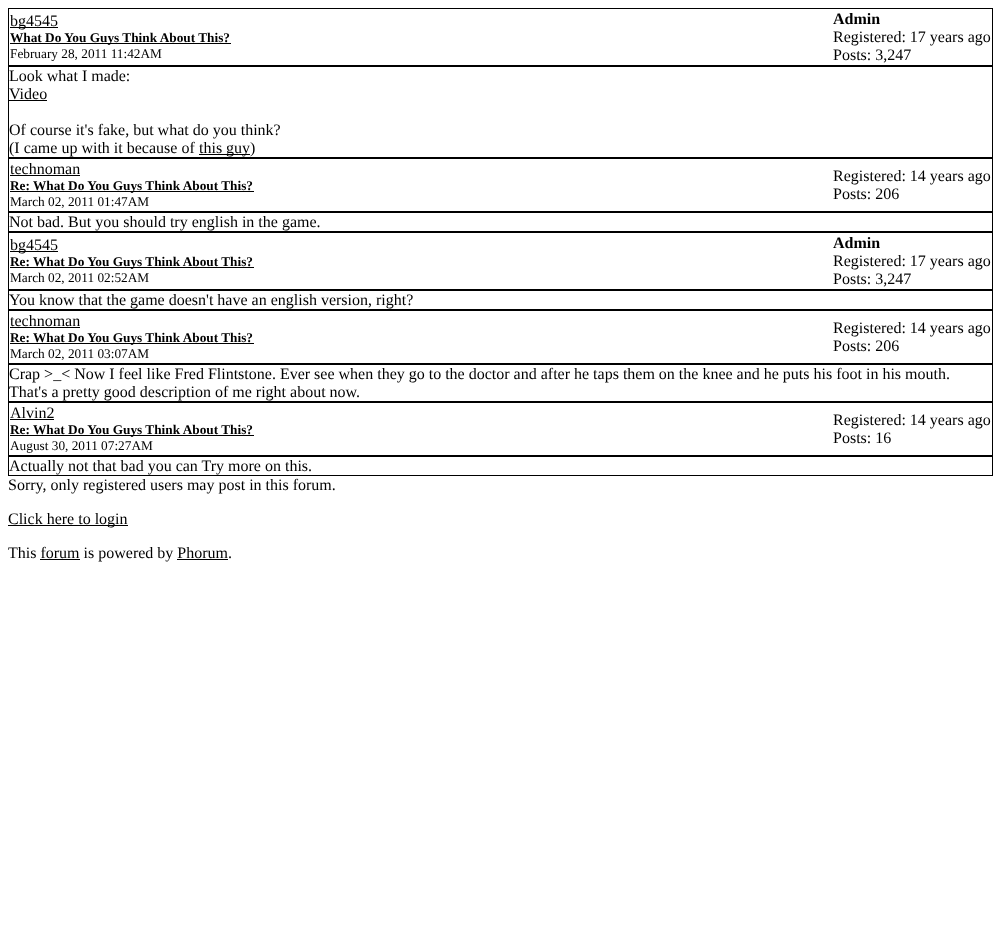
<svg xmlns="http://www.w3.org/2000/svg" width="1001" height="952">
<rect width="100%" height="100%" fill="#fff"/>
<rect x="8.5" y="8.5" width="984" height="57" fill="none" stroke="#000"/>
<rect x="10" y="27" width="48" height="1" fill="#000"/>
<text x="10" y="26" style="font-family:Liberation Serif;font-size:16px;fill:#000">bg4545</text>
<rect x="10" y="43" width="221" height="1" fill="#000"/>
<text x="10" y="42" style="font-family:Liberation Serif;font-size:13.3px;font-weight:bold;fill:#000">What Do You Guys Think About This?</text>
<text x="10" y="58" style="font-family:Liberation Serif;font-size:13.3px;fill:#000">February 28, 2011 11:42AM</text>
<text x="833" y="24" style="font-family:Liberation Serif;font-size:16px;font-weight:bold;fill:#000">Admin</text>
<text x="833" y="42" style="font-family:Liberation Serif;font-size:16px;fill:#000">Registered: 17 years ago</text>
<text x="833" y="60" style="font-family:Liberation Serif;font-size:16px;fill:#000">Posts: 3,247</text>
<rect x="8.5" y="66.5" width="984" height="91" fill="none" stroke="#000"/>
<text x="9" y="81" style="font-family:Liberation Serif;font-size:16px;fill:#000">Look what I made:</text>
<text x="9" y="99" style="font-family:Liberation Serif;font-size:16px;fill:#000">Video</text>
<rect x="9" y="100" width="38" height="1" fill="#000"/>
<text x="9" y="135" style="font-family:Liberation Serif;font-size:16px;fill:#000">Of course it's fake, but what do you think?</text>
<text x="9" y="153" style="font-family:Liberation Serif;font-size:16px;fill:#000">(I came up with it because of</text>
<rect x="199" y="154" width="51" height="1" fill="#000"/>
<text x="199" y="153" style="font-family:Liberation Serif;font-size:16px;fill:#000">this guy)</text>
<rect x="8.5" y="158.5" width="984" height="53" fill="none" stroke="#000"/>
<text x="10" y="174" style="font-family:Liberation Serif;font-size:16px;fill:#000">technoman</text>
<rect x="10" y="175" width="70" height="1" fill="#000"/>
<rect x="10" y="191" width="244" height="1" fill="#000"/>
<text x="10" y="190" style="font-family:Liberation Serif;font-size:13.3px;font-weight:bold;fill:#000">Re: What Do You Guys Think About This?</text>
<text x="10" y="206" style="font-family:Liberation Serif;font-size:13.3px;fill:#000">March 02, 2011 01:47AM</text>
<text x="833" y="181" style="font-family:Liberation Serif;font-size:16px;fill:#000">Registered: 14 years ago</text>
<text x="833" y="199" style="font-family:Liberation Serif;font-size:16px;fill:#000">Posts: 206</text>
<rect x="8.5" y="212.5" width="984" height="19" fill="none" stroke="#000"/>
<text x="9" y="227" style="font-family:Liberation Serif;font-size:16px;fill:#000">Not bad. But you should try english in the game.</text>
<rect x="8.5" y="232.5" width="984" height="57" fill="none" stroke="#000"/>
<rect x="10" y="251" width="48" height="1" fill="#000"/>
<text x="10" y="250" style="font-family:Liberation Serif;font-size:16px;fill:#000">bg4545</text>
<rect x="10" y="267" width="244" height="1" fill="#000"/>
<text x="10" y="266" style="font-family:Liberation Serif;font-size:13.3px;font-weight:bold;fill:#000">Re: What Do You Guys Think About This?</text>
<text x="10" y="282" style="font-family:Liberation Serif;font-size:13.3px;fill:#000">March 02, 2011 02:52AM</text>
<text x="833" y="248" style="font-family:Liberation Serif;font-size:16px;font-weight:bold;fill:#000">Admin</text>
<text x="833" y="266" style="font-family:Liberation Serif;font-size:16px;fill:#000">Registered: 17 years ago</text>
<text x="833" y="284" style="font-family:Liberation Serif;font-size:16px;fill:#000">Posts: 3,247</text>
<rect x="8.5" y="290.5" width="984" height="19" fill="none" stroke="#000"/>
<text x="9" y="305" style="font-family:Liberation Serif;font-size:16px;fill:#000">You know that the game doesn't have an english version, right?</text>
<rect x="8.5" y="310.5" width="984" height="53" fill="none" stroke="#000"/>
<text x="10" y="326" style="font-family:Liberation Serif;font-size:16px;fill:#000">technoman</text>
<rect x="10" y="327" width="70" height="1" fill="#000"/>
<rect x="10" y="343" width="244" height="1" fill="#000"/>
<text x="10" y="342" style="font-family:Liberation Serif;font-size:13.3px;font-weight:bold;fill:#000">Re: What Do You Guys Think About This?</text>
<text x="10" y="358" style="font-family:Liberation Serif;font-size:13.3px;fill:#000">March 02, 2011 03:07AM</text>
<text x="833" y="333" style="font-family:Liberation Serif;font-size:16px;fill:#000">Registered: 14 years ago</text>
<text x="833" y="351" style="font-family:Liberation Serif;font-size:16px;fill:#000">Posts: 206</text>
<rect x="8.5" y="364.5" width="984" height="37" fill="none" stroke="#000"/>
<text x="9" y="379" style="font-family:Liberation Serif;font-size:16px;fill:#000">Crap &gt;_&lt; Now I feel like Fred Flintstone. Ever see when they go to the doctor and after he taps them on the knee and he puts his foot in his mouth.</text>
<text x="9" y="397" style="font-family:Liberation Serif;font-size:16px;fill:#000">That's a pretty good description of me right about now.</text>
<rect x="8.5" y="402.5" width="984" height="53" fill="none" stroke="#000"/>
<text x="10" y="418" style="font-family:Liberation Serif;font-size:16px;fill:#000">Alvin2</text>
<rect x="10" y="419" width="44" height="1" fill="#000"/>
<rect x="10" y="435" width="244" height="1" fill="#000"/>
<text x="10" y="434" style="font-family:Liberation Serif;font-size:13.3px;font-weight:bold;fill:#000">Re: What Do You Guys Think About This?</text>
<text x="10" y="450" style="font-family:Liberation Serif;font-size:13.3px;fill:#000">August 30, 2011 07:27AM</text>
<text x="833" y="425" style="font-family:Liberation Serif;font-size:16px;fill:#000">Registered: 14 years ago</text>
<text x="833" y="443" style="font-family:Liberation Serif;font-size:16px;fill:#000">Posts: 16</text>
<rect x="8.5" y="456.5" width="984" height="19" fill="none" stroke="#000"/>
<text x="9" y="471" style="font-family:Liberation Serif;font-size:16px;fill:#000">Actually not that bad you can Try more on this.</text>
<text x="8" y="490" style="font-family:Liberation Serif;font-size:16px;fill:#000">Sorry, only registered users may post in this forum.</text>
<rect x="8" y="525" width="120" height="1" fill="#000"/>
<text x="8" y="524" style="font-family:Liberation Serif;font-size:16px;fill:#000">Click here to login</text>
<text x="8" y="558" style="font-family:Liberation Serif;font-size:16px;fill:#000">This forum is powered by Phorum.</text>
<rect x="40" y="559" width="40" height="1" fill="#000"/>
<rect x="177" y="559" width="51" height="1" fill="#000"/>
</svg>
